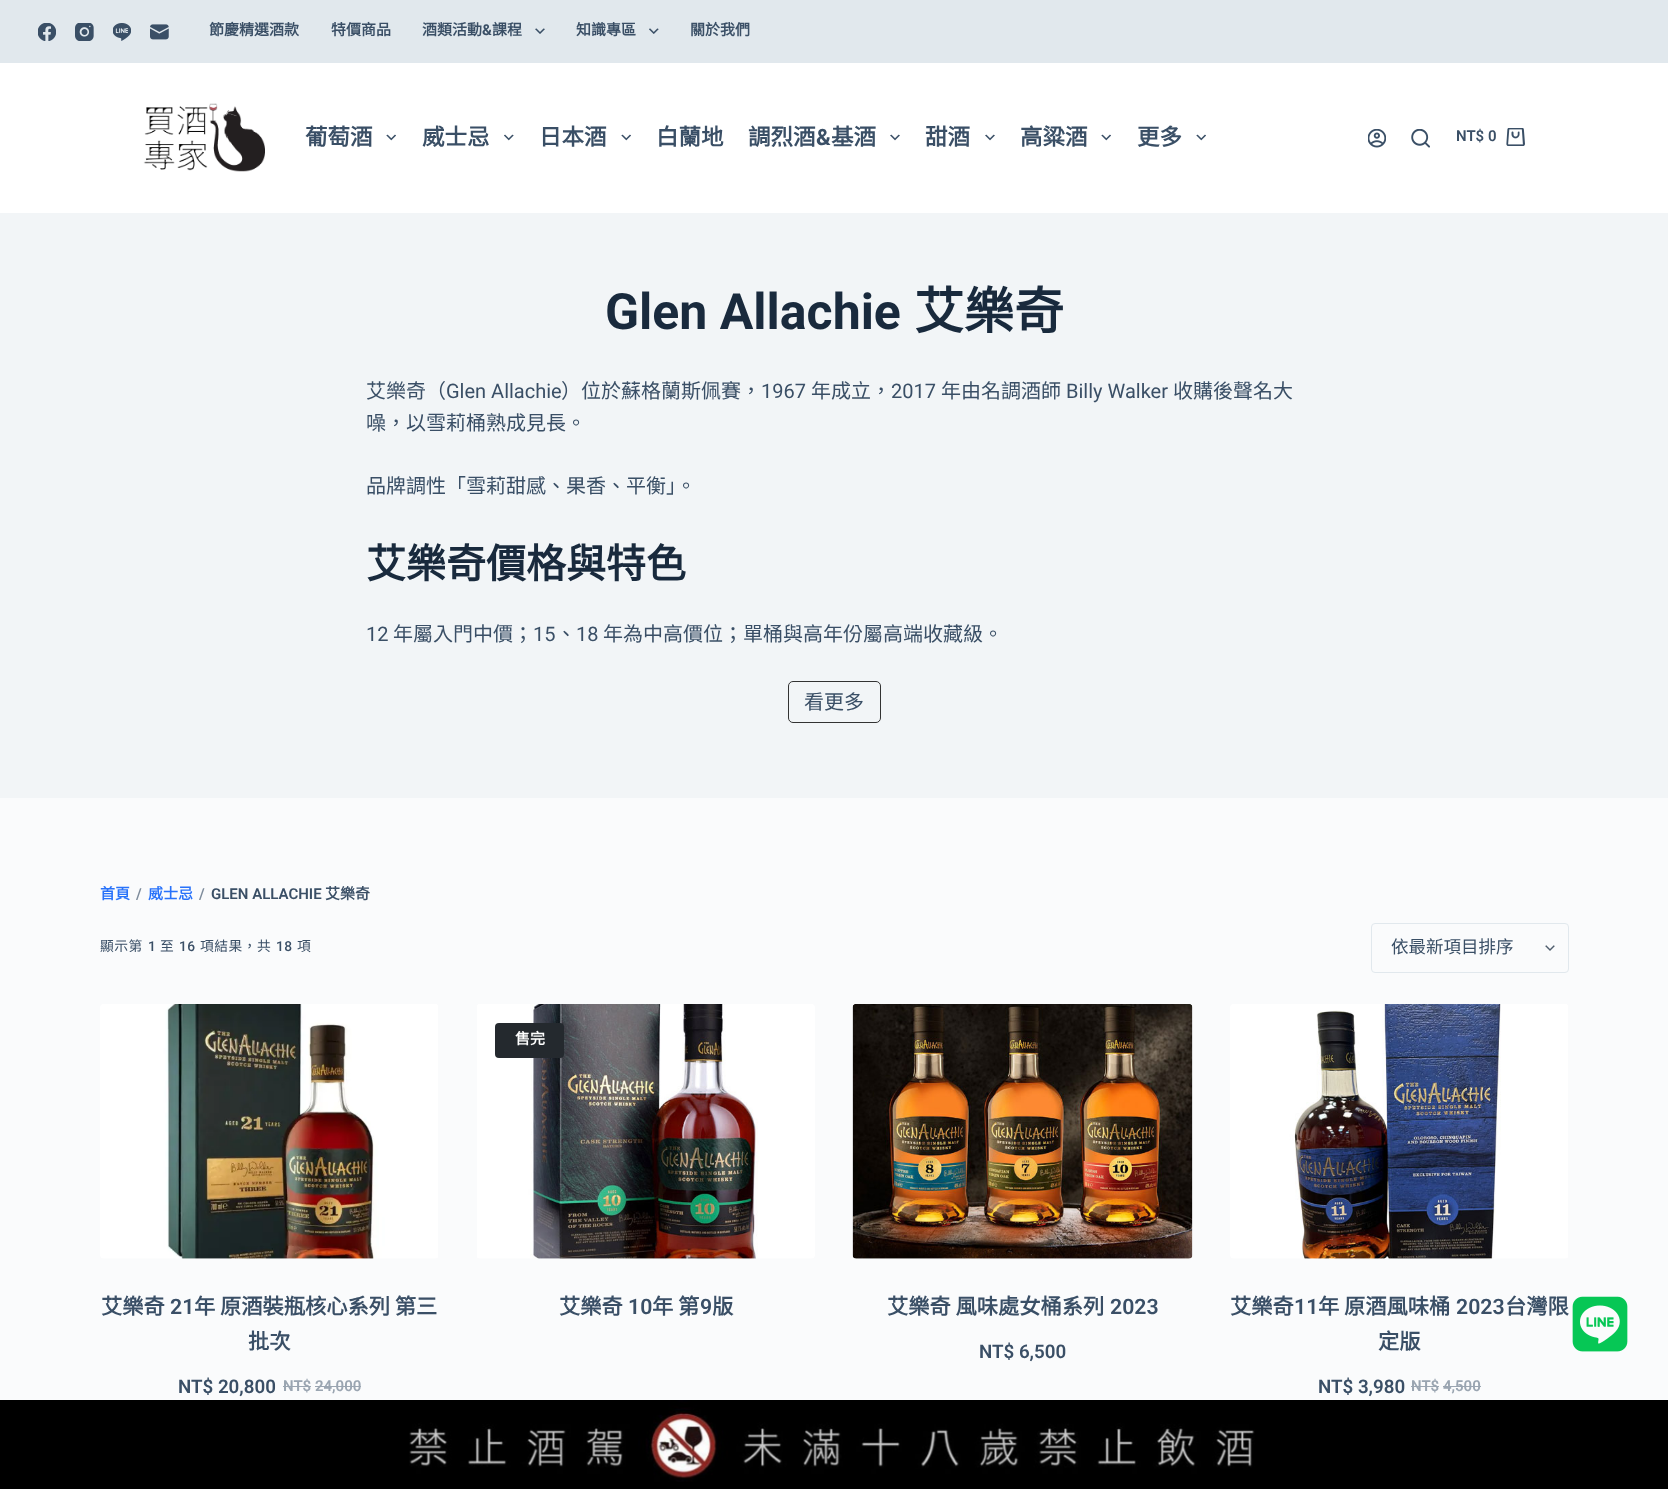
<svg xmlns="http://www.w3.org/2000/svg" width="1668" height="1489">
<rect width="100%" height="100%" fill="#fafbfc"/>
<rect y="63" width="1668" height="150" fill="#fff"/>
<rect width="1668" height="63" fill="#e1e8ed"/>
<image x="38" y="23" width="18" height="18" href="media/1.png"/>
<image x="75" y="23" width="19" height="18" href="media/2.png"/>
<image x="113" y="23" width="18" height="18" href="media/3.png"/>
<image x="150" y="24" width="19" height="16" href="media/4.png"/>
<text x="209" y="35" style="font-family:Noto Sans CJK TC;font-size:15px;font-weight:bold;fill:#3a4f66">節慶精選酒款</text>
<text x="331" y="35" style="font-family:Noto Sans CJK TC;font-size:15px;font-weight:bold;fill:#3a4f66">特價商品</text>
<text x="422" y="35" style="font-family:Noto Sans CJK TC;font-size:15px;font-weight:bold;fill:#3a4f66">酒類活動</text>
<text x="482" y="35" style="font-family:Roboto;font-size:15px;font-weight:bold;fill:#3a4f66">&amp;</text>
<text x="492" y="35" style="font-family:Noto Sans CJK TC;font-size:15px;font-weight:bold;fill:#3a4f66">課程</text>
<image x="535" y="28" width="10" height="6" href="media/5.png"/>
<text x="576" y="35" style="font-family:Noto Sans CJK TC;font-size:15px;font-weight:bold;fill:#3a4f66">知識專區</text>
<image x="649" y="28" width="10" height="6" href="media/6.png"/>
<text x="690" y="35" style="font-family:Noto Sans CJK TC;font-size:15px;font-weight:bold;fill:#3a4f66">關於我們</text>
<image x="143" y="103" width="122" height="69" href="media/7.png"/>
<text x="305" y="145" style="font-family:Noto Sans CJK TC;font-size:22.5px;font-weight:bold;fill:#3a4f66">葡萄酒</text>
<image x="386" y="134" width="10" height="7" href="media/8.png"/>
<text x="422" y="145" style="font-family:Noto Sans CJK TC;font-size:22.5px;font-weight:bold;fill:#3a4f66">威士忌</text>
<image x="504" y="134" width="10" height="7" href="media/9.png"/>
<text x="539" y="145" style="font-family:Noto Sans CJK TC;font-size:22.5px;font-weight:bold;fill:#3a4f66">日本酒</text>
<image x="621" y="134" width="10" height="7" href="media/8.png"/>
<text x="656" y="145" style="font-family:Noto Sans CJK TC;font-size:22.5px;font-weight:bold;fill:#3a4f66">白蘭地</text>
<text x="748" y="145" style="font-family:Noto Sans CJK TC;font-size:22.5px;font-weight:bold;fill:#3a4f66">調烈酒</text>
<text x="816" y="145" style="font-family:Roboto;font-size:22.5px;font-weight:bold;fill:#3a4f66">&amp;</text>
<text x="831" y="145" style="font-family:Noto Sans CJK TC;font-size:22.5px;font-weight:bold;fill:#3a4f66">基酒</text>
<image x="890" y="134" width="10" height="7" href="media/10.png"/>
<text x="925" y="145" style="font-family:Noto Sans CJK TC;font-size:22.5px;font-weight:bold;fill:#3a4f66">甜酒</text>
<image x="985" y="134" width="10" height="7" href="media/10.png"/>
<text x="1020" y="145" style="font-family:Noto Sans CJK TC;font-size:22.5px;font-weight:bold;fill:#3a4f66">高粱酒</text>
<image x="1101" y="134" width="10" height="7" href="media/8.png"/>
<text x="1137" y="145" style="font-family:Noto Sans CJK TC;font-size:22.5px;font-weight:bold;fill:#3a4f66">更多</text>
<image x="1196" y="134" width="10" height="7" href="media/8.png"/>
<image x="1368" y="129" width="18" height="19" href="media/11.png"/>
<image x="1411" y="129" width="19" height="19" href="media/12.png"/>
<text x="1456" y="141" style="font-family:Roboto;font-size:15px;font-weight:600;fill:#3a4f66">NT$ 0</text>
<image x="1506" y="128" width="19" height="18" href="media/13.png"/>
<rect y="213" width="1668" height="585" fill="#f2f5f7"/>
<text x="605" y="329" style="font-family:Roboto;font-size:50px;font-weight:bold;fill:#192a3d">Glen Allachie</text>
<text x="914" y="329" style="font-family:Noto Sans CJK TC;font-size:50px;font-weight:bold;fill:#192a3d">艾樂奇</text>
<text x="366" y="398" style="font-family:Noto Sans CJK TC;font-size:20px;fill:#3a4f66">艾樂奇（</text>
<text x="446" y="398" style="font-family:Roboto;font-size:20px;fill:#3a4f66">Glen Allachie</text>
<text x="561" y="398" style="font-family:Noto Sans CJK TC;font-size:20px;fill:#3a4f66">）位於蘇格蘭斯佩賽，</text>
<text x="761" y="398" style="font-family:Roboto;font-size:20px;fill:#3a4f66">1967</text>
<text x="811" y="398" style="font-family:Noto Sans CJK TC;font-size:20px;fill:#3a4f66">年成立，</text>
<text x="891" y="398" style="font-family:Roboto;font-size:20px;fill:#3a4f66">2017</text>
<text x="941" y="398" style="font-family:Noto Sans CJK TC;font-size:20px;fill:#3a4f66">年由名調酒師</text>
<text x="1066" y="398" style="font-family:Roboto;font-size:20px;fill:#3a4f66">Billy Walker</text>
<text x="1173" y="398" style="font-family:Noto Sans CJK TC;font-size:20px;fill:#3a4f66">收購後聲名大</text>
<text x="366" y="430" style="font-family:Noto Sans CJK TC;font-size:20px;fill:#3a4f66">噪，以雪莉桶熟成見長。</text>
<text x="366" y="493" style="font-family:Noto Sans CJK TC;font-size:20px;fill:#3a4f66">品牌調性「雪莉甜感、果香、平衡」。</text>
<text x="366" y="578" style="font-family:Noto Sans CJK TC;font-size:40px;font-weight:bold;fill:#192a3d">艾樂奇價格與特色</text>
<text x="366" y="641" style="font-family:Roboto;font-size:20px;fill:#3a4f66">12</text>
<text x="393" y="641" style="font-family:Noto Sans CJK TC;font-size:20px;fill:#3a4f66">年屬入門中價；</text>
<text x="533" y="641" style="font-family:Roboto;font-size:20px;fill:#3a4f66">15</text>
<text x="556" y="641" style="font-family:Noto Sans CJK TC;font-size:20px;fill:#3a4f66">、</text>
<text x="576" y="641" style="font-family:Roboto;font-size:20px;fill:#3a4f66">18</text>
<text x="603" y="641" style="font-family:Noto Sans CJK TC;font-size:20px;fill:#3a4f66">年為中高價位；單桶與高年份屬高端收藏級。</text>
<rect x="788.5" y="681.5" width="92" height="41" rx="4.5" fill="none" stroke="#333"/>
<text x="804" y="709" style="font-family:Noto Sans CJK TC;font-size:20px;fill:#3a4f66">看更多</text>
<text x="100" y="899" style="font-family:Noto Sans CJK TC;font-size:15px;font-weight:bold;fill:#2872fa">首頁</text>
<text x="136" y="899" style="font-family:Roboto;font-size:15px;font-weight:600;fill:#7d8b9b">/</text>
<text x="148" y="899" style="font-family:Noto Sans CJK TC;font-size:15px;font-weight:bold;fill:#2872fa">威士忌</text>
<text x="199" y="899" style="font-family:Roboto;font-size:15px;font-weight:600;fill:#7d8b9b">/</text>
<text x="211" y="899" style="font-family:Roboto;font-size:15px;font-weight:600;fill:#3a4f66">GLEN ALLACHIE</text>
<text x="325" y="899" style="font-family:Noto Sans CJK TC;font-size:15px;font-weight:bold;fill:#3a4f66">艾樂奇</text>
<text x="100" y="951" style="font-family:Noto Sans CJK TC;font-size:13.75px;letter-spacing:0.5px;fill:#3a4f66">顯示第</text>
<text x="148" y="951" style="font-family:Roboto;font-size:13.75px;font-weight:500;letter-spacing:0.5px;fill:#3a4f66">1</text>
<text x="160" y="951" style="font-family:Noto Sans CJK TC;font-size:13.75px;letter-spacing:0.5px;fill:#3a4f66">至</text>
<text x="179" y="951" style="font-family:Roboto;font-size:13.75px;font-weight:500;letter-spacing:0.5px;fill:#3a4f66">16</text>
<text x="200" y="951" style="font-family:Noto Sans CJK TC;font-size:13.75px;letter-spacing:0.5px;fill:#3a4f66">項結果，共</text>
<text x="276" y="951" style="font-family:Roboto;font-size:13.75px;font-weight:500;letter-spacing:0.5px;fill:#3a4f66">18</text>
<text x="297" y="951" style="font-family:Noto Sans CJK TC;font-size:13.75px;letter-spacing:0.5px;fill:#3a4f66">項</text>
<image x="1545" y="945" width="10" height="6" href="media/14.png"/>
<rect x="1371.5" y="923.5" width="197" height="49" rx="3.5" fill="none" stroke="#e1e8ed"/>
<text x="1391" y="953" style="font-family:Noto Sans CJK TC;font-size:17.5px;fill:#3a4f66">依最新項目排序</text>
<image x="477" y="1004" width="338" height="255" href="media/15.png"/>
<rect x="495" y="1023" width="69" height="35" rx="4" fill="#24292e"/>
<text x="515" y="1044" style="font-family:Noto Sans CJK TC;font-size:15px;font-weight:bold;fill:#fff">售完</text>
<text x="559" y="1314" style="font-family:Noto Sans CJK TC;font-size:21.25px;font-weight:bold;fill:#3a4f66">艾樂奇</text>
<text x="628" y="1314" style="font-family:Roboto;font-size:21.25px;font-weight:600;fill:#3a4f66">10</text>
<text x="652" y="1314" style="font-family:Noto Sans CJK TC;font-size:21.25px;font-weight:bold;fill:#3a4f66">年 第</text>
<text x="700" y="1314" style="font-family:Roboto;font-size:21.25px;font-weight:600;fill:#3a4f66">9</text>
<text x="712" y="1314" style="font-family:Noto Sans CJK TC;font-size:21.25px;font-weight:bold;fill:#3a4f66">版</text>
<image x="100" y="1004" width="338" height="255" href="media/16.png"/>
<text x="101" y="1314" style="font-family:Noto Sans CJK TC;font-size:21.25px;font-weight:bold;fill:#3a4f66">艾樂奇</text>
<text x="170" y="1314" style="font-family:Roboto;font-size:21.25px;font-weight:600;fill:#3a4f66">21</text>
<text x="194" y="1314" style="font-family:Noto Sans CJK TC;font-size:21.25px;font-weight:bold;fill:#3a4f66">年 原酒裝瓶核心系列 第三</text>
<text x="248" y="1349" style="font-family:Noto Sans CJK TC;font-size:21.25px;font-weight:bold;fill:#3a4f66">批次</text>
<text x="178" y="1393" style="font-family:Roboto;font-size:18.75px;font-weight:600;fill:#3a4f66">NT$ 20,800</text>
<text x="283" y="1391" style="font-family:Roboto;font-size:15px;font-weight:600;fill:#9aa5b1">NT$ 24,000</text>
<rect x="283" y="1386" width="28" height="1" fill="#9aa5b1"/>
<rect x="315" y="1386" width="46" height="1" fill="#9aa5b1"/>
<image x="852" y="1004" width="341" height="255" href="media/17.png"/>
<text x="887" y="1314" style="font-family:Noto Sans CJK TC;font-size:21.25px;font-weight:bold;fill:#3a4f66">艾樂奇 風味處女桶系列</text>
<text x="1110" y="1314" style="font-family:Roboto;font-size:21.25px;font-weight:600;fill:#3a4f66">2023</text>
<text x="979" y="1358" style="font-family:Roboto;font-size:18.75px;font-weight:600;fill:#3a4f66">NT$ 6,500</text>
<image x="1230" y="1004" width="338" height="255" href="media/18.png"/>
<text x="1230" y="1314" style="font-family:Noto Sans CJK TC;font-size:21.25px;font-weight:bold;fill:#3a4f66">艾樂奇</text>
<text x="1294" y="1314" style="font-family:Roboto;font-size:21.25px;font-weight:600;fill:#3a4f66">11</text>
<text x="1318" y="1314" style="font-family:Noto Sans CJK TC;font-size:21.25px;font-weight:bold;fill:#3a4f66">年 原酒風味桶</text>
<text x="1456" y="1314" style="font-family:Roboto;font-size:21.25px;font-weight:600;fill:#3a4f66">2023</text>
<text x="1505" y="1314" style="font-family:Noto Sans CJK TC;font-size:21.25px;font-weight:bold;fill:#3a4f66">台灣限</text>
<text x="1378" y="1349" style="font-family:Noto Sans CJK TC;font-size:21.25px;font-weight:bold;fill:#3a4f66">定版</text>
<text x="1318" y="1393" style="font-family:Roboto;font-size:18.75px;font-weight:600;fill:#3a4f66">NT$ 3,980</text>
<text x="1411" y="1391" style="font-family:Roboto;font-size:15px;font-weight:600;fill:#9aa5b1">NT$ 4,500</text>
<rect x="1411" y="1386" width="28" height="1" fill="#9aa5b1"/>
<rect x="1443" y="1386" width="38" height="1" fill="#9aa5b1"/>
<image x="1572" y="1296" width="56" height="56" href="media/19.png"/>
<rect y="1400" width="1668" height="89" fill="#000"/>
<image x="409" y="1400" width="846" height="82" href="media/20.png"/>
</svg>
